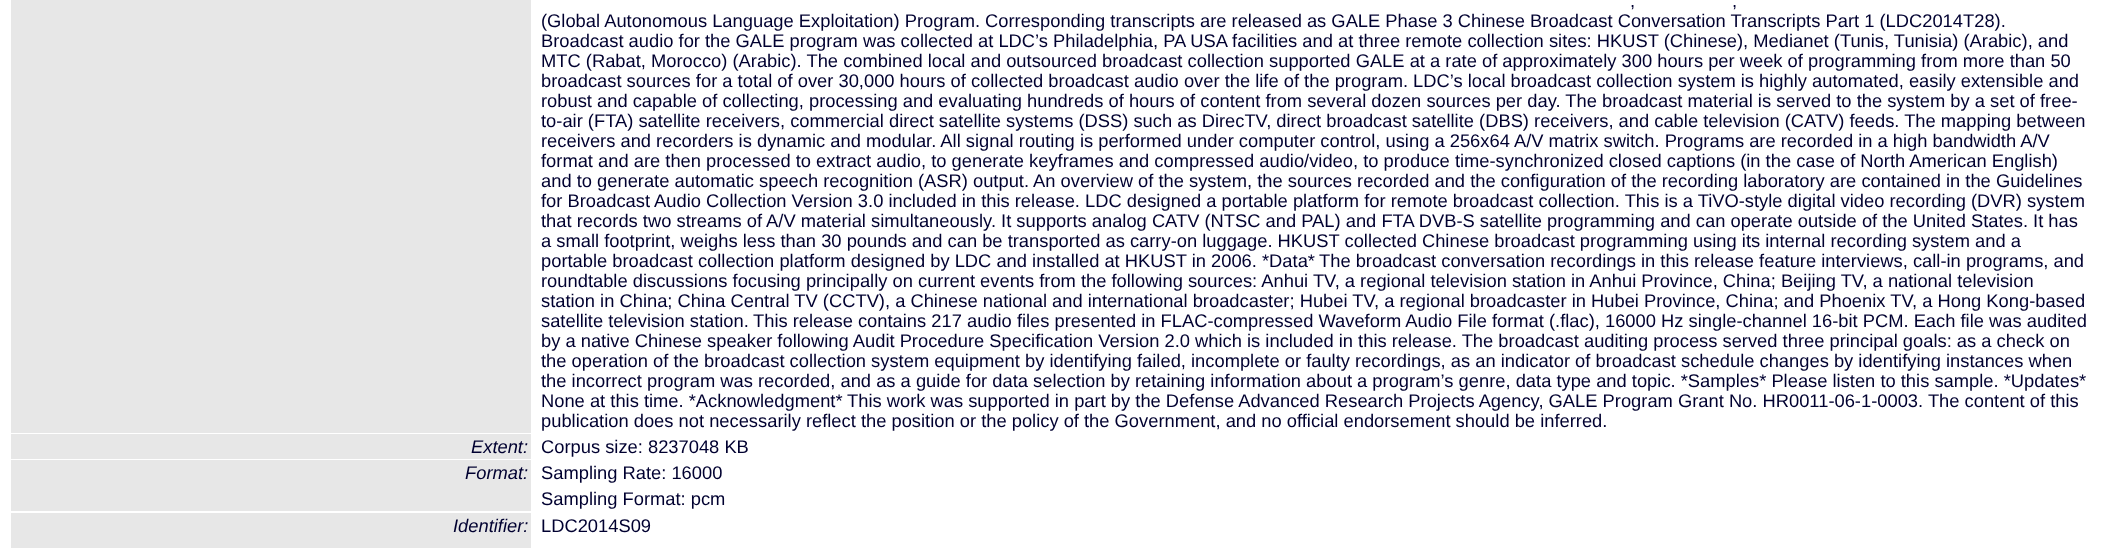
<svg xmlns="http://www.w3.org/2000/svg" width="2102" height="548">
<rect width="100%" height="100%" fill="#fff"/>
<rect x="11" width="520" height="433" fill="#e7e7e7"/>
<text x="1630" y="7" style="font-family:Liberation Sans;font-size:18.33px;fill:#000030">,</text>
<text x="1732" y="7" style="font-family:Liberation Sans;font-size:18.33px;fill:#000030">,</text>
<text x="541" y="27" style="font-family:Liberation Sans;font-size:18.33px;fill:#000030">(Global Autonomous Language Exploitation) Program.</text>
<text x="985" y="27" style="font-family:Liberation Sans;font-size:18.33px;fill:#000030">Corresponding transcripts are released as GALE Phase 3 Chinese Broadcast Conversation Transcripts Part 1 (LDC2014T28).</text>
<text x="541" y="47" style="font-family:Liberation Sans;font-size:18.33px;fill:#000030">Broadcast audio for the GALE program was collected at LDC’s Philadelphia, PA USA facilities and at three remote collection sites: HKUST (Chinese), Medianet (Tunis, Tunisia) (Arabic), and</text>
<text x="541" y="67" style="font-family:Liberation Sans;font-size:18.33px;fill:#000030">MTC (Rabat, Morocco) (Arabic). The combined local and outsourced broadcast collection supported GALE at a rate of approximately 300 hours per week of programming from more than 50</text>
<text x="541" y="87" style="font-family:Liberation Sans;font-size:18.33px;fill:#000030">broadcast sources for a total of over 30,000 hours of collected broadcast audio over the life of the program. LDC’s local broadcast collection system is highly automated, easily extensible and</text>
<text x="541" y="107" style="font-family:Liberation Sans;font-size:18.33px;fill:#000030">robust and capable of collecting, processing and evaluating hundreds of hours of content from several dozen sources per day. The broadcast material is served to the system by a set of free-</text>
<text x="541" y="127" style="font-family:Liberation Sans;font-size:18.33px;fill:#000030">to-air (FTA) satellite receivers, commercial direct satellite systems (DSS) such as DirecTV, direct broadcast satellite (DBS) receivers, and cable television (CATV) feeds. The mapping between</text>
<text x="541" y="147" style="font-family:Liberation Sans;font-size:18.33px;fill:#000030">receivers and recorders is dynamic and modular. All signal routing is performed under computer control, using a 256x64 A/V matrix switch. Programs are recorded in a high bandwidth A/V</text>
<text x="541" y="167" style="font-family:Liberation Sans;font-size:18.33px;fill:#000030">format and are then processed to extract audio, to generate keyframes and compressed audio/video, to produce time-synchronized closed captions (in the case of North American English)</text>
<text x="541" y="187" style="font-family:Liberation Sans;font-size:18.33px;fill:#000030">and to generate automatic speech recognition (ASR) output. An overview of the system, the sources recorded and the configuration of the recording laboratory are contained in the Guidelines</text>
<text x="541" y="207" style="font-family:Liberation Sans;font-size:18.33px;fill:#000030">for Broadcast Audio Collection Version 3.0 included in this release. LDC designed a portable platform for remote broadcast collection. This is a TiVO-style digital video recording (DVR) system</text>
<text x="541" y="227" style="font-family:Liberation Sans;font-size:18.33px;fill:#000030">that records two streams of A/V material simultaneously. It supports analog CATV (NTSC and PAL) and FTA DVB-S satellite programming and can operate outside of the United States. It has</text>
<text x="541" y="247" style="font-family:Liberation Sans;font-size:18.33px;fill:#000030">a small footprint, weighs less than 30 pounds and can be transported as carry-on luggage. HKUST collected Chinese broadcast programming using its internal recording system and a</text>
<text x="541" y="267" style="font-family:Liberation Sans;font-size:18.33px;fill:#000030">portable broadcast collection platform designed by LDC and installed at HKUST in 2006. *Data*</text>
<text x="1319" y="267" style="font-family:Liberation Sans;font-size:18.33px;fill:#000030">The broadcast conversation recordings in this release feature interviews, call-in programs, and</text>
<text x="541" y="287" style="font-family:Liberation Sans;font-size:18.33px;fill:#000030">roundtable discussions focusing principally on current events from the following sources: Anhui TV, a regional television station in Anhui Province, China; Beijing TV, a national television</text>
<text x="541" y="307" style="font-family:Liberation Sans;font-size:18.33px;fill:#000030">station in China; China Central TV (CCTV), a Chinese national and international broadcaster; Hubei TV, a regional broadcaster in Hubei Province, China; and Phoenix TV, a Hong Kong-based</text>
<text x="541" y="327" style="font-family:Liberation Sans;font-size:18.33px;fill:#000030">satellite television station.</text>
<text x="753" y="327" style="font-family:Liberation Sans;font-size:18.33px;fill:#000030">This release contains 217 audio files presented in FLAC-compressed Waveform Audio File format (.flac), 16000 Hz single-channel 16-bit PCM. Each file was audited</text>
<text x="541" y="347" style="font-family:Liberation Sans;font-size:18.33px;fill:#000030">by a native Chinese speaker following Audit Procedure Specification Version 2.0 which is included in this release. The broadcast auditing process served three principal goals: as a check on</text>
<text x="541" y="367" style="font-family:Liberation Sans;font-size:18.33px;fill:#000030">the operation of the broadcast collection system equipment by identifying failed, incomplete or faulty recordings, as an indicator of broadcast schedule changes by identifying instances when</text>
<text x="541" y="387" style="font-family:Liberation Sans;font-size:18.33px;fill:#000030">the incorrect program was recorded, and as a guide for data selection by retaining information about a program’s genre, data type and topic. *Samples* Please listen to this sample. *Updates*</text>
<text x="541" y="407" style="font-family:Liberation Sans;font-size:18.33px;fill:#000030">None at this time. *Acknowledgment*</text>
<text x="847" y="407" style="font-family:Liberation Sans;font-size:18.33px;fill:#000030">This work was supported in part by the Defense Advanced Research Projects Agency, GALE Program Grant No. HR0011-06-1-0003. The content of this</text>
<text x="541" y="427" style="font-family:Liberation Sans;font-size:18.33px;fill:#000030">publication does not necessarily reflect the position or the policy of the Government, and no official endorsement should be inferred.</text>
<rect x="11" y="434" width="520" height="25" fill="#e7e7e7"/>
<text x="471" y="453" style="font-family:Liberation Sans;font-size:18.33px;font-style:italic;fill:#000030">Extent:</text>
<text x="541" y="453" style="font-family:Liberation Sans;font-size:18.33px;fill:#000030">Corpus size: 8237048 KB</text>
<rect x="11" y="460" width="520" height="51" fill="#e7e7e7"/>
<text x="465" y="479" style="font-family:Liberation Sans;font-size:18.33px;font-style:italic;fill:#000030">Format:</text>
<text x="541" y="479" style="font-family:Liberation Sans;font-size:18.33px;fill:#000030">Sampling Rate: 16000</text>
<text x="541" y="505" style="font-family:Liberation Sans;font-size:18.33px;fill:#000030">Sampling Format: pcm</text>
<rect x="11" y="513" width="520" height="35" fill="#e7e7e7"/>
<text x="453" y="532" style="font-family:Liberation Sans;font-size:18.33px;font-style:italic;fill:#000030">Identifier:</text>
<text x="541" y="532" style="font-family:Liberation Sans;font-size:18.33px;fill:#000030">LDC2014S09</text>
</svg>
